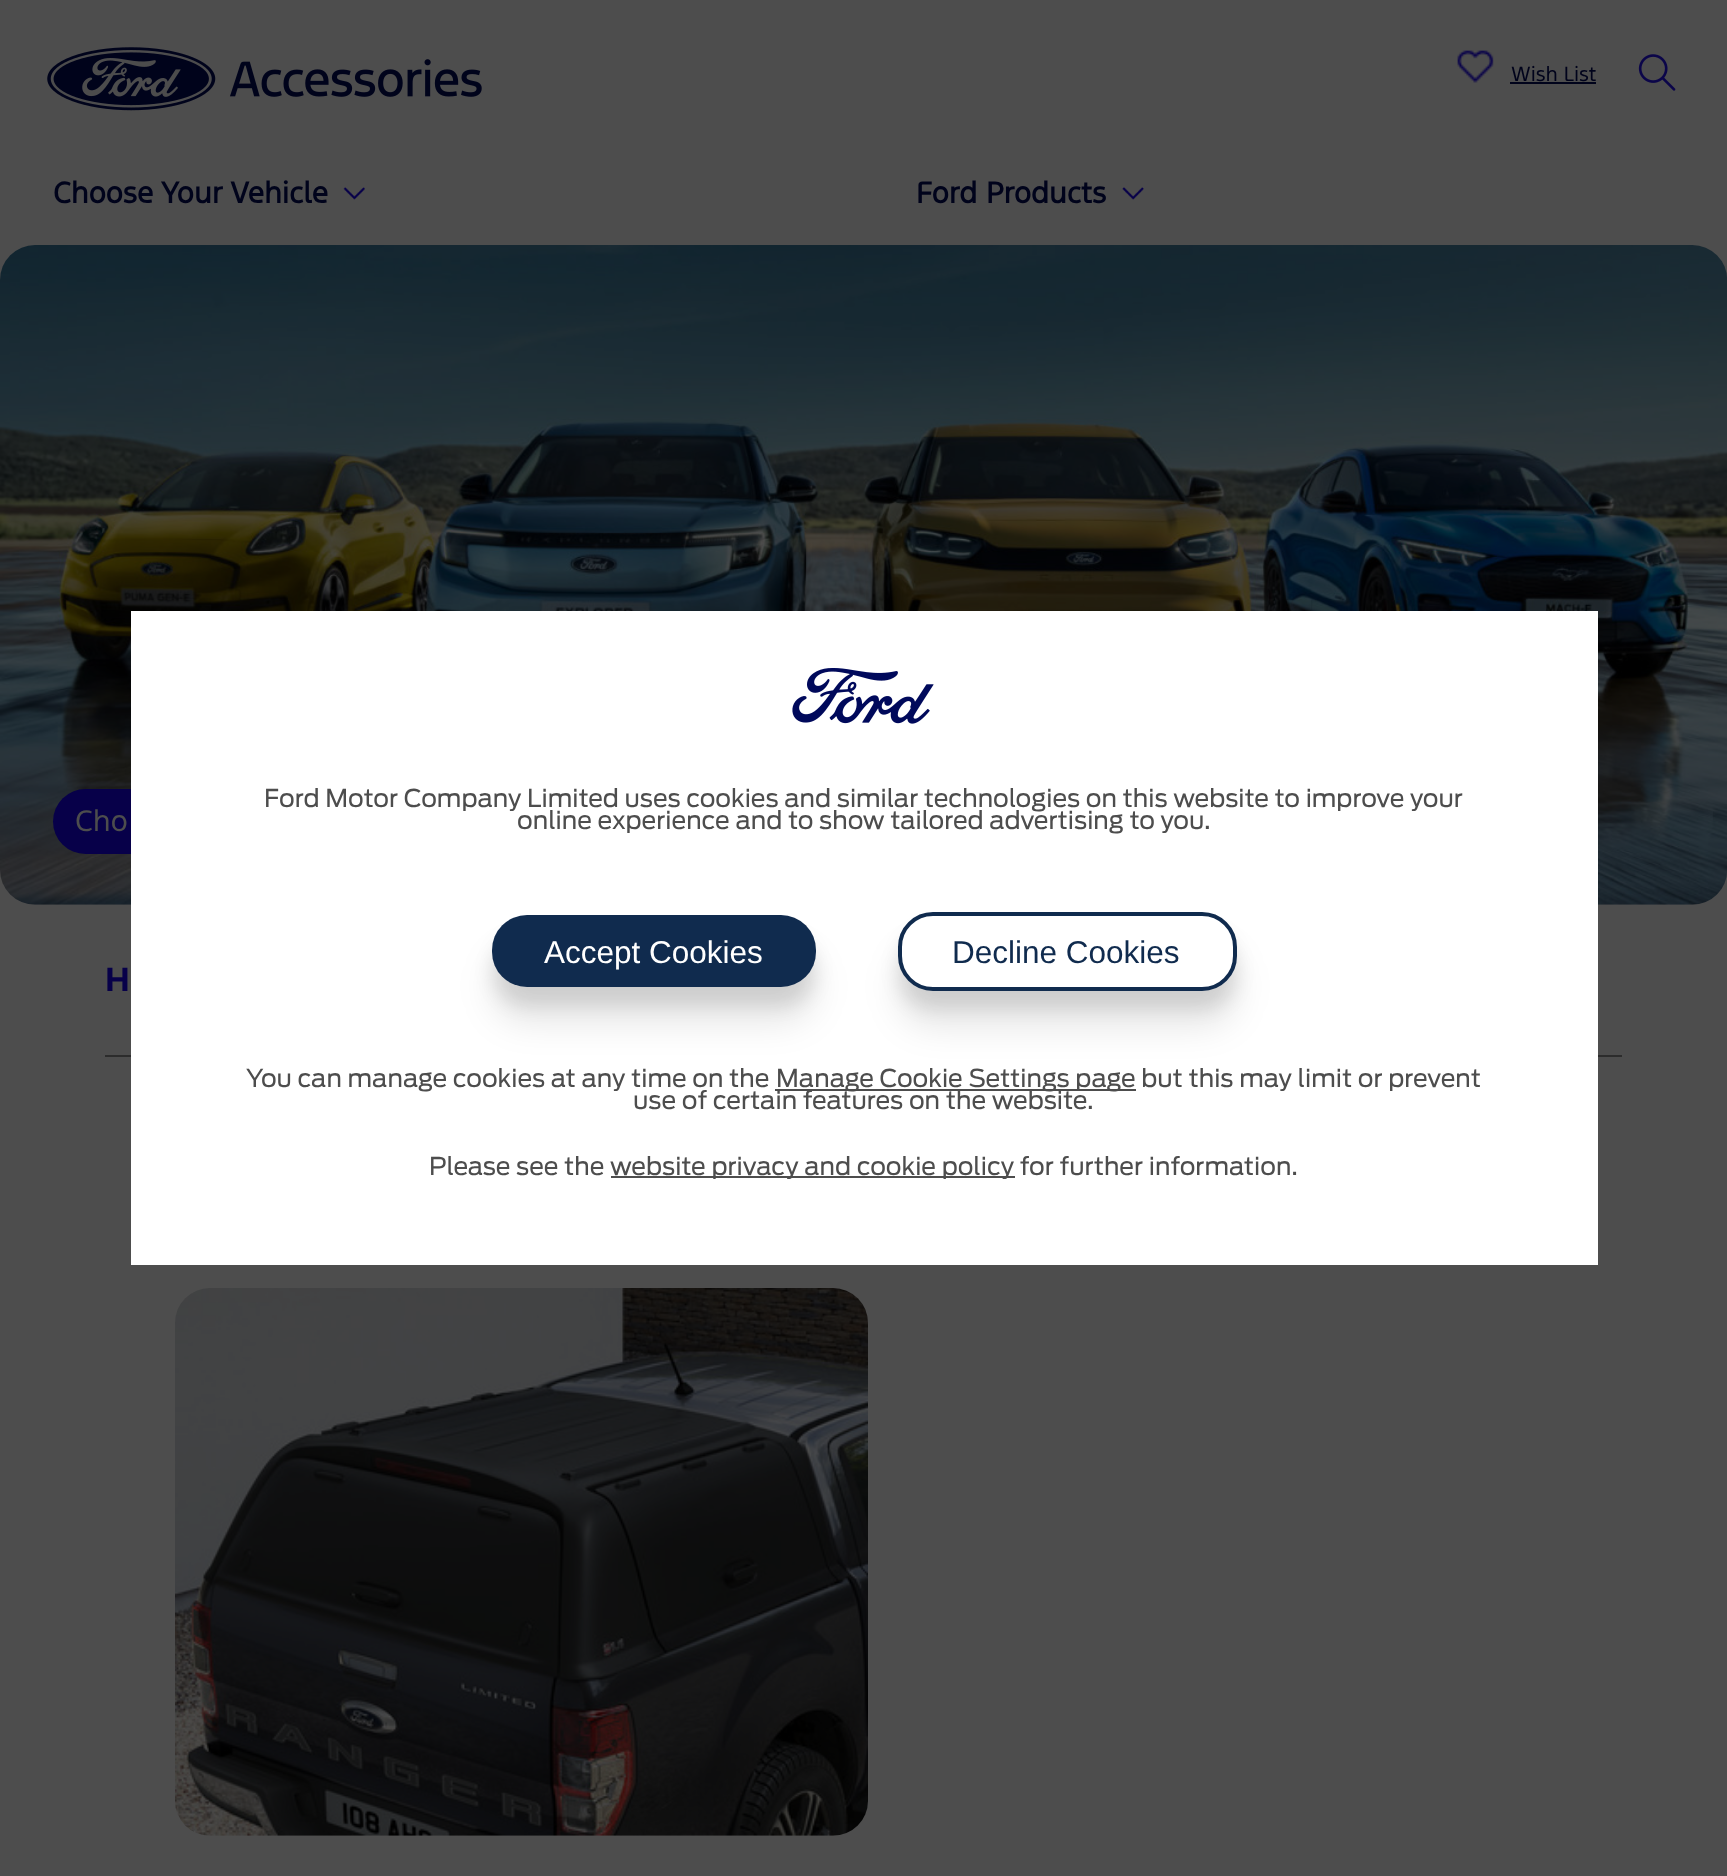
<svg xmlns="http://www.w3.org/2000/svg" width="1727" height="1876">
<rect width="100%" height="100%" fill="#4d4d4d"/>
<image x="47" y="47" width="435" height="64" href="media/1.png"/>
<image x="1457" y="50" width="37" height="33" href="media/2.png"/>
<text x="1511" y="81" style="font-family:'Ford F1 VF';font-size:19.25px;fill:#00031b">Wish List</text>
<rect x="1510" y="82" width="86" height="2" fill="#00031b"/>
<image x="1638" y="54" width="38" height="37" href="media/3.png"/>
<text x="53" y="203" style="font-family:'Ford F1 VF';font-size:28px;font-weight:bold;fill:#00031b">Choose Your Vehicle</text>
<image x="343" y="187" width="22" height="13" href="media/4.png"/>
<text x="916" y="203" style="font-family:'Ford F1 VF';font-size:28px;font-weight:bold;fill:#00031b">Ford Products</text>
<image x="1122" y="187" width="22" height="13" href="media/5.png"/>
<image x="0" y="245" width="1727" height="660" href="media/6.png"/>
<rect x="53" y="789" width="320" height="65" rx="32.5" fill="#070049"/>
<text x="75" y="831" style="font-family:'Ford F1 VF';font-size:28px;fill:#4d4d4d">Cho</text>
<rect x="105" y="1055" width="1517" height="2" fill="#2c2c2c"/>
<rect x="131" y="611" width="1467" height="654" fill="#fff"/>
<image x="792" y="668" width="142" height="56" href="media/7.png"/>
<text x="264" y="807" style="font-family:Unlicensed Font;font-size:24.5px;fill:#4d4d4d">Ford Motor Company Limited uses cookies and similar technologies on this website to improve your</text>
<text x="517" y="829" style="font-family:Unlicensed Font;font-size:24.5px;fill:#4d4d4d">online experience and to show tailored advertising to you.</text>
<rect x="492" y="950" width="324" height="72" rx="35" fill="#0000001a" filter="blur(17.5px)"/>
<rect x="492" y="933" width="324" height="72" rx="35" fill="#0000001a" filter="blur(9px)"/>
<rect x="492" y="915" width="324" height="72" rx="35" fill="#102b4e"/>
<text x="544" y="963" style="font-family:Liberation Sans;font-size:31.5px;fill:#fff">Accept Cookies</text>
<rect x="898" y="947" width="339" height="79" rx="35" fill="#0000001a" filter="blur(17.5px)"/>
<rect x="898" y="929" width="339" height="79" rx="35" fill="#0000001a" filter="blur(9px)"/>
<rect x="900" y="914" width="335" height="75" rx="33" fill="#fff" stroke="#102b4e" stroke-width="4"/>
<text x="952" y="963" style="font-family:Liberation Sans;font-size:31.5px;fill:#102b4e">Decline Cookies</text>
<text x="246" y="1087" style="font-family:Unlicensed Font;font-size:24.5px;fill:#4d4d4d">You can manage cookies at any time on the</text>
<rect x="775" y="1089" width="361" height="2" fill="#4d4d4d"/>
<text x="776" y="1087" style="font-family:Unlicensed Font;font-size:24.5px;fill:#4d4d4d">Manage Cookie Settings page but this may limit or prevent</text>
<text x="633" y="1109" style="font-family:Unlicensed Font;font-size:24.5px;fill:#4d4d4d">use of certain features on the website.</text>
<text x="429" y="1175" style="font-family:Unlicensed Font;font-size:24.5px;fill:#4d4d4d">Please see the</text>
<rect x="611" y="1176" width="404" height="2" fill="#4d4d4d"/>
<text x="610" y="1175" style="font-family:Unlicensed Font;font-size:24.5px;fill:#4d4d4d">website privacy and cookie policy for further information.</text>
<text x="105" y="991" style="font-family:'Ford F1';font-size:31.5px;font-weight:bold;fill:#070049">H</text>
<image x="175" y="1288" width="693" height="548" href="media/8.png"/>
</svg>
